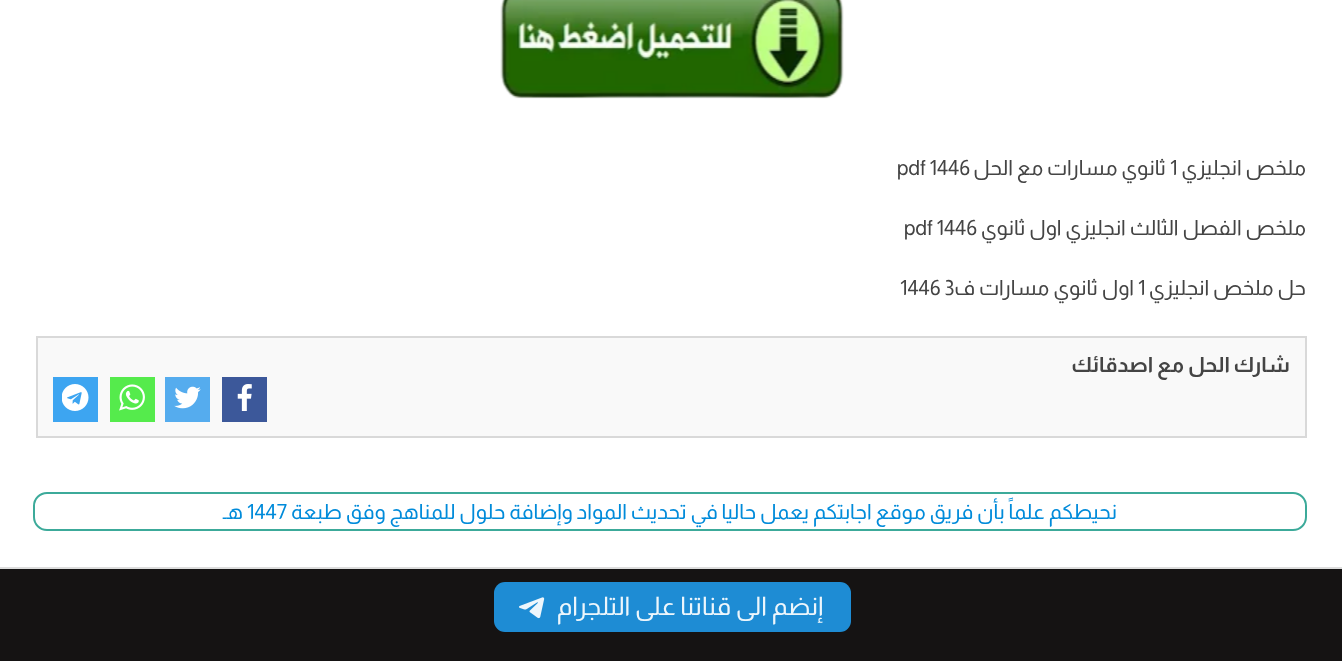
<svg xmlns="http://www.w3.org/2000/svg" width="1342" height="661">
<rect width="100%" height="100%" fill="#fff"/>
<image x="500" y="0" width="344" height="99" href="media/1.png"/>
<text x="1306" y="175" style="font-family:Almarai;font-size:21px;direction:rtl;fill:#444">ملخص انجليزي</text>
<text x="1170" y="175" style="font-family:Almarai;font-size:21px;fill:#444">1</text>
<text x="1166" y="175" style="font-family:Almarai;font-size:21px;direction:rtl;fill:#444">ثانوي مسارات مع الحل</text>
<text x="897" y="175" style="font-family:Almarai;font-size:21px;fill:#444">pdf 1446</text>
<text x="1306" y="235" style="font-family:Almarai;font-size:21px;direction:rtl;fill:#444">ملخص الفصل الثالث انجليزي اول ثانوي</text>
<text x="904" y="235" style="font-family:Almarai;font-size:21px;fill:#444">pdf 1446</text>
<text x="1306" y="295" style="font-family:Almarai;font-size:21px;direction:rtl;fill:#444">حل ملخص انجليزي</text>
<text x="1138" y="295" style="font-family:Almarai;font-size:21px;fill:#444">1</text>
<text x="1134" y="295" style="font-family:Almarai;font-size:21px;direction:rtl;fill:#444">اول ثانوي مسارات ف</text>
<text x="900" y="295" style="font-family:Almarai;font-size:21px;fill:#444">1446 3</text>
<rect x="37" y="337" width="1269" height="100" fill="#f9f9f9" stroke="#d9d9d9" stroke-width="2"/>
<text x="1290" y="372" style="font-family:Almarai;font-size:21px;font-weight:bold;direction:rtl;fill:#444">شارك</text>
<text x="1230" y="372" style="font-family:Almarai;font-size:21px;font-weight:bold;direction:rtl;fill:#444">الحل</text>
<text x="1184" y="372" style="font-family:Almarai;font-size:21px;font-weight:bold;direction:rtl;fill:#444">مع اصدقائك</text>
<rect x="222" y="377" width="45" height="45" fill="#3c589a"/>
<image x="237" y="384" width="15" height="27" href="media/2.png"/>
<rect x="165" y="377" width="45" height="45" fill="#55acee"/>
<image x="174" y="386" width="27" height="23" href="media/3.png"/>
<rect x="110" y="377" width="45" height="45" fill="#55eb4c"/>
<image x="119" y="384" width="26" height="27" href="media/4.png"/>
<rect x="53" y="377" width="45" height="45" fill="#3da5f1"/>
<image x="62" y="384" width="27" height="27" href="media/5.png"/>
<rect x="34" y="493" width="1272" height="37" rx="13" fill="none" stroke="#3caa9a" stroke-width="2"/>
<text x="1117" y="519" style="font-family:Almarai;font-size:21px;direction:rtl;fill:#008bda">نحيطكم علماً بأن فريق موقع اجابتكم يعمل حاليا في تحديث المواد وإضافة حلول للمناهج وفق طبعة</text>
<text x="247" y="519" style="font-family:Almarai;font-size:21px;fill:#008bda">1447</text>
<text x="243" y="519" style="font-family:Almarai;font-size:21px;direction:rtl;fill:#008bda">هـ</text>
<rect y="569" width="1342" height="92" fill="#151313"/>
<rect x="494" y="582" width="357" height="50" rx="11" fill="#1f97e5eb"/>
<text x="823" y="615" style="font-family:Almarai;font-size:25.5px;direction:rtl;fill:#edf6fc">إنضم الى قناتنا على التلجرام</text>
<image x="519" y="597" width="26" height="22" href="media/6.png"/>
<rect y="567" width="1342" height="2" fill="#ddd"/>
</svg>
